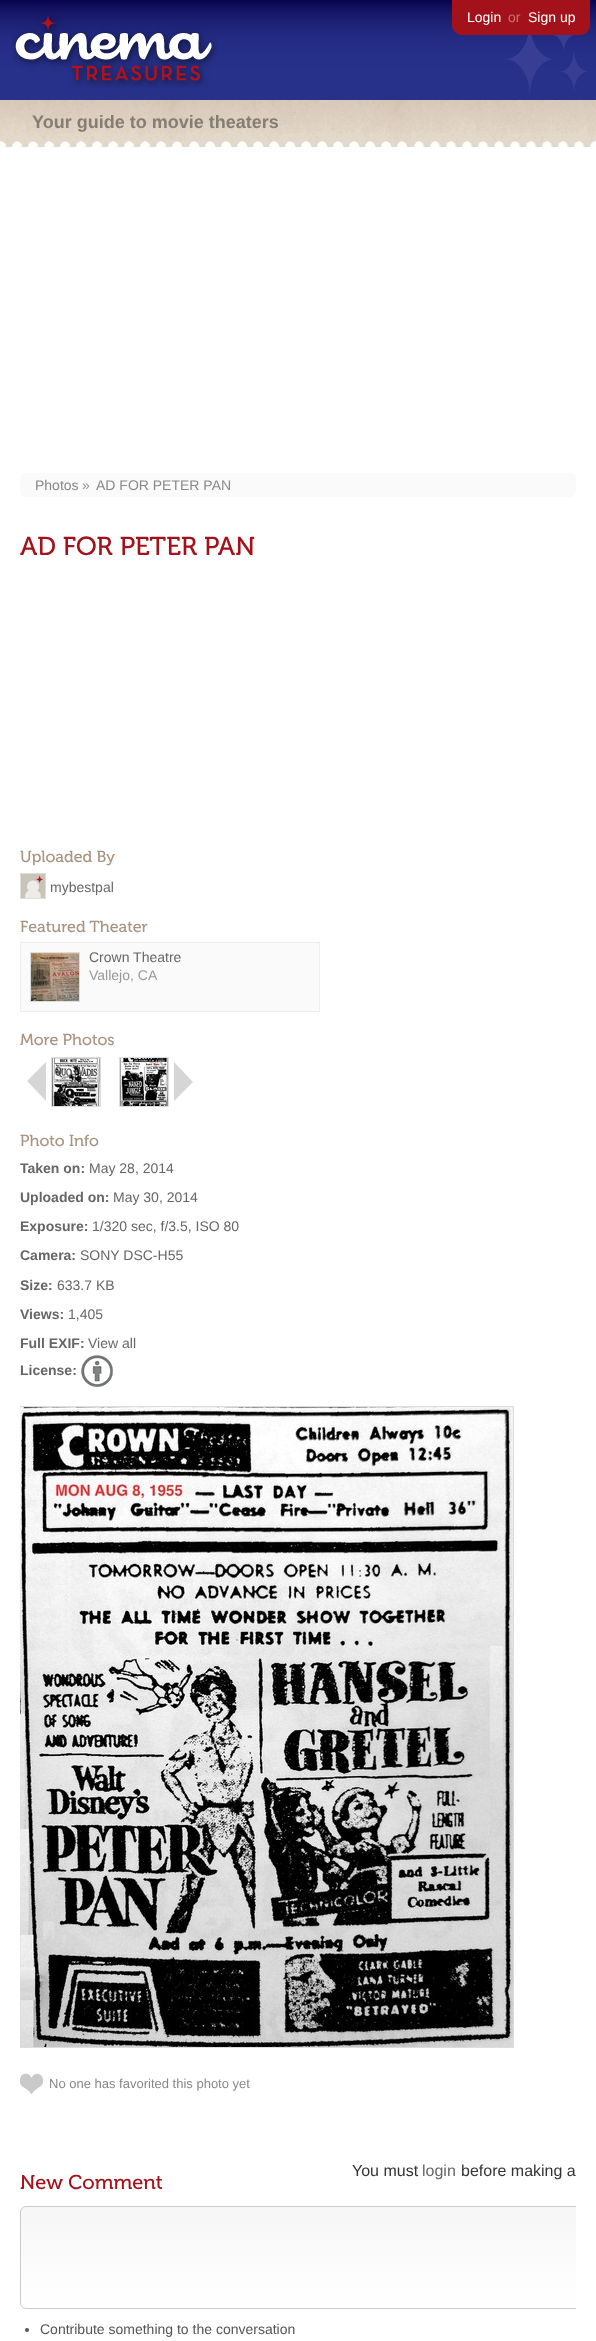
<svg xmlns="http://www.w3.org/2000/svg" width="596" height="2341">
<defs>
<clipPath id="clip1"><rect x="20" y="172" width="556" height="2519"/></clipPath>
<clipPath id="clip2"><rect x="20" y="2206" width="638" height="103" rx="6"/></clipPath>
<linearGradient id="g1" gradientUnits="userSpaceOnUse" x1="339" y1="2207" x2="339" y2="2308"><stop offset="0" stop-color="#f6f6f6"/><stop offset="1" stop-color="#fff"/></linearGradient>
</defs>
<rect width="100%" height="100%" fill="#fff"/>
<image x="0" y="0" width="596" height="100" href="media/1.png"/>
<image x="12" y="15" width="206" height="73" href="media/2.png"/>
<path d="M452 0h138v25c0 5.5-4.5 10-10 10h-118c-5.5 0-10-4.5-10-10z" fill="#a3121b"/>
<text x="467" y="22" style="font-family:Liberation Sans;font-size:14px;fill:#fff">Login</text>
<text x="508" y="22" style="font-family:Liberation Sans;font-size:14px;fill:#c87176">or</text>
<text x="528" y="22" style="font-family:Liberation Sans;font-size:14px;fill:#fff">Sign up</text>
<image x="506" y="35" width="81" height="58" href="media/3.png"/>
<image x="0" y="100" width="596" height="48" href="media/4.png"/>
<text x="32" y="128" style="font-family:Liberation Sans;font-size:18px;font-weight:bold;fill:#857d74">Your guide to movie theaters</text>
<rect x="20" y="473" width="556" height="24" rx="6" fill="#fafafa"/>
<text x="35" y="490" style="font-family:Liberation Sans;font-size:14px;fill:#888">Photos</text>
<text x="82" y="490" style="font-family:Liberation Sans;font-size:14px;fill:#999">»</text>
<text x="96" y="490" style="font-family:Liberation Sans;font-size:14px;fill:#888">AD FOR PETER PAN</text>
<text x="20" y="555" style="font-family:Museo;font-size:26px;fill:#a3121b">AD FOR PETER PAN</text>
<text x="20" y="862" style="font-family:Museo;font-size:16px;fill:#a99382">Uploaded By</text>
<rect x="20.5" y="873.5" width="25" height="25" fill="none" stroke="#ddd"/>
<image x="21" y="874" width="24" height="24" href="media/5.png"/>
<text x="50" y="892" style="font-family:Liberation Sans;font-size:14px;fill:#666">mybestpal</text>
<text x="20" y="932" style="font-family:Museo;font-size:16px;fill:#a99382">Featured Theater</text>
<rect x="20.5" y="942.5" width="299" height="69" fill="#fafafa" stroke="#eee"/>
<rect x="30.5" y="952.5" width="49" height="49" fill="none" stroke="#ddd"/>
<image x="31" y="953" width="48" height="48" href="media/6.png"/>
<text x="89" y="962" style="font-family:Liberation Sans;font-size:14px;fill:#666">Crown Theatre</text>
<text x="89" y="980" style="font-family:Liberation Sans;font-size:14px;fill:#999">Vallejo, CA</text>
<text x="20" y="1045" style="font-family:Museo;font-size:16px;fill:#a99382">More Photos</text>
<rect x="51.5" y="1057.5" width="49" height="49" fill="none" stroke="#ddd"/>
<image x="27" y="1062" width="19" height="39" href="media/7.png"/>
<image x="52" y="1058" width="48" height="48" href="media/8.png"/>
<rect x="119.5" y="1057.5" width="49" height="49" fill="none" stroke="#ddd"/>
<image x="120" y="1058" width="48" height="48" href="media/9.png"/>
<image x="174" y="1062" width="19" height="39" href="media/10.png"/>
<text x="20" y="1146" style="font-family:Museo;font-size:16px;fill:#a99382">Photo Info</text>
<text x="20" y="1173" style="font-family:Liberation Sans;font-size:14px;font-weight:bold;fill:#666">Taken on:</text>
<text x="89" y="1173" style="font-family:Liberation Sans;font-size:14px;fill:#666">May 28, 2014</text>
<text x="20" y="1202" style="font-family:Liberation Sans;font-size:14px;font-weight:bold;fill:#666">Uploaded on:</text>
<text x="113" y="1202" style="font-family:Liberation Sans;font-size:14px;fill:#666">May 30, 2014</text>
<text x="20" y="1231" style="font-family:Liberation Sans;font-size:14px;font-weight:bold;fill:#666">Exposure:</text>
<text x="92" y="1231" style="font-family:Liberation Sans;font-size:14px;fill:#666">1/320 sec, f/3.5, ISO 80</text>
<text x="20" y="1260" style="font-family:Liberation Sans;font-size:14px;font-weight:bold;fill:#666">Camera:</text>
<text x="80" y="1260" style="font-family:Liberation Sans;font-size:14px;fill:#666">SONY DSC-H55</text>
<text x="20" y="1290" style="font-family:Liberation Sans;font-size:14px;font-weight:bold;fill:#666">Size:</text>
<text x="57" y="1290" style="font-family:Liberation Sans;font-size:14px;fill:#666">633.7 KB</text>
<text x="20" y="1319" style="font-family:Liberation Sans;font-size:14px;font-weight:bold;fill:#666">Views:</text>
<text x="68" y="1319" style="font-family:Liberation Sans;font-size:14px;fill:#666">1,405</text>
<text x="20" y="1348" style="font-family:Liberation Sans;font-size:14px;font-weight:bold;fill:#666">Full EXIF:</text>
<text x="88" y="1348" style="font-family:Liberation Sans;font-size:14px;fill:#666">View all</text>
<text x="20" y="1375" style="font-family:Liberation Sans;font-size:14px;font-weight:bold;fill:#666">License:</text>
<image x="81" y="1355" width="32" height="32" href="media/11.png"/>
<image x="20" y="1407" width="493" height="640" href="media/12.png"/>
<g clip-path="url(#clip1)">
<rect x="19.5" y="1406.5" width="494" height="641" fill="none" stroke="#ddd"/>
</g>
<image x="20" y="2073" width="23" height="22" href="media/13.png"/>
<text x="49" y="2088" style="font-family:Liberation Sans;font-size:13px;fill:#888">No one has favorited this photo yet</text>
<text x="352" y="2176" style="font-family:Liberation Sans;font-size:16px;fill:#333">You must</text>
<text x="422" y="2176" style="font-family:Liberation Sans;font-size:16px;fill:#666">login</text>
<text x="461" y="2176" style="font-family:Liberation Sans;font-size:16px;fill:#333">before making a</text>
<text x="20" y="2189" style="font-family:Museo;font-size:20px;fill:#a3121b">New Comment</text>
<g clip-path="url(#clip2)">
<rect x="20" y="2207" width="556" height="101" fill="url(#g1)"/>
</g>
<g clip-path="url(#clip1)">
<rect x="20.5" y="2206.5" width="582" height="102" rx="5.5" fill="none" stroke="#ccc"/>
</g>
<circle cx="27" cy="2330" r="2" fill="#555"/>
<text x="40" y="2334" style="font-family:Liberation Sans;font-size:14px;fill:#555">Contribute something to the conversation</text>
</svg>
